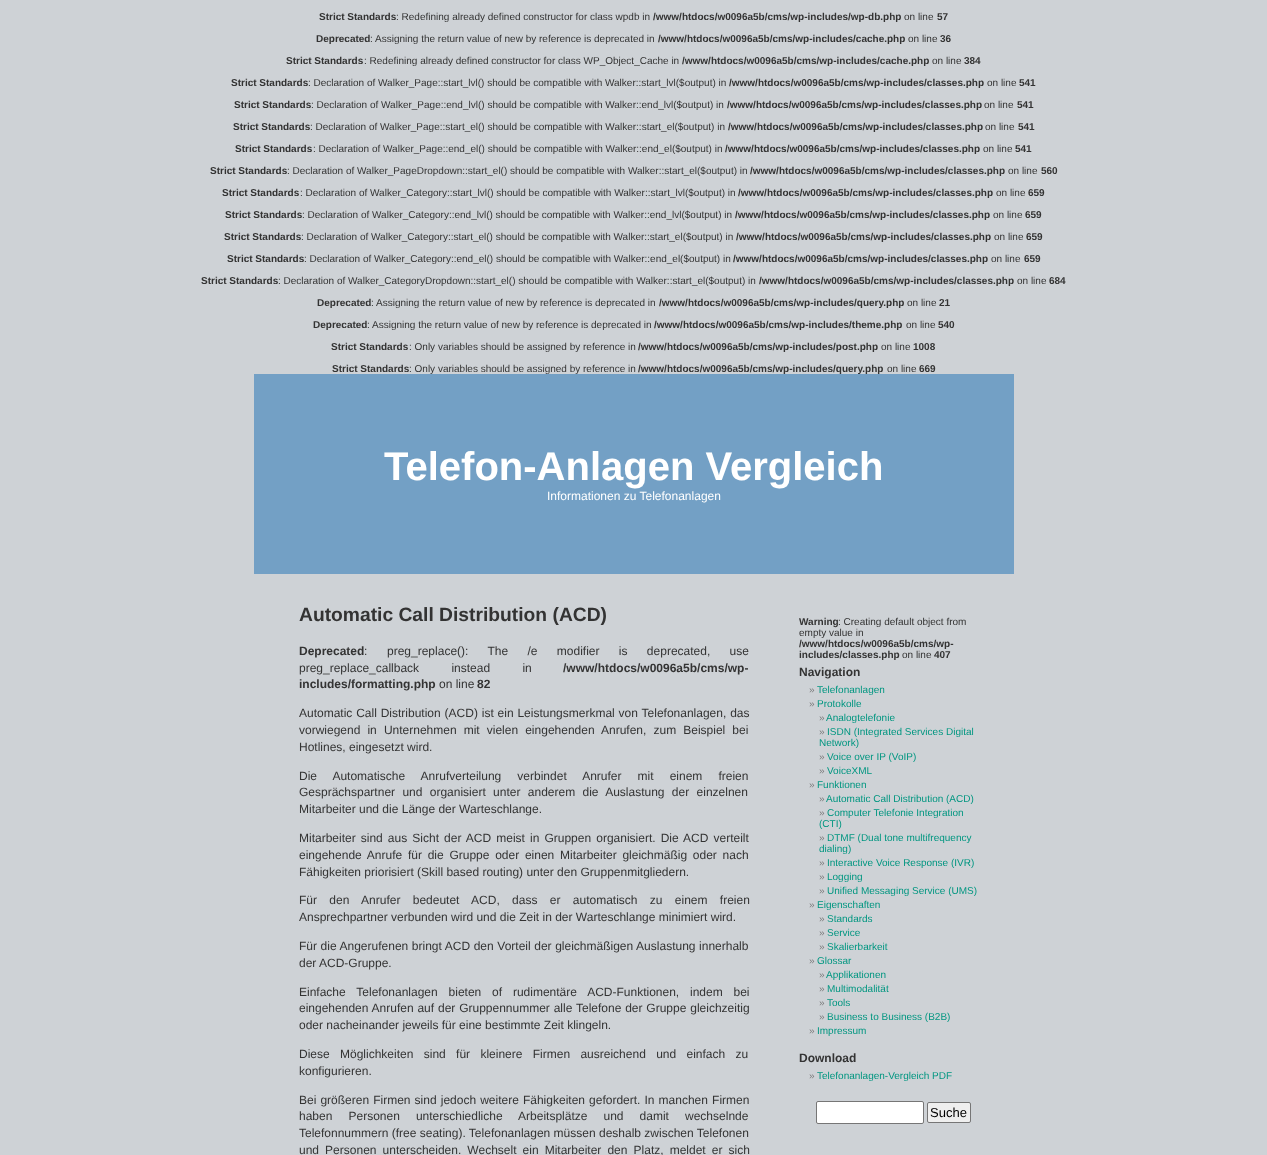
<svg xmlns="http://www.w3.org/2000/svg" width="1267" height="1155">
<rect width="100%" height="100%" fill="#ced2d6"/>
<text x="319" y="20" style="font-family:Liberation Sans;font-size:10px;font-weight:bold;fill:#333">Strict Standards</text>
<text x="396" y="20" style="font-family:Liberation Sans;font-size:10px;fill:#333">: Redefining already defined constructor for class wpdb in</text>
<text x="653" y="20" style="font-family:Liberation Sans;font-size:10px;font-weight:bold;fill:#333">/www/htdocs/w0096a5b/cms/wp-includes/wp-db.php</text>
<text x="904" y="20" style="font-family:Liberation Sans;font-size:10px;fill:#333">on line</text>
<text x="937" y="20" style="font-family:Liberation Sans;font-size:10px;font-weight:bold;fill:#333">57</text>
<text x="316" y="42" style="font-family:Liberation Sans;font-size:10px;font-weight:bold;fill:#333">Deprecated</text>
<text x="370" y="42" style="font-family:Liberation Sans;font-size:10px;fill:#333">:</text>
<text x="375" y="42" style="font-family:Liberation Sans;font-size:10px;fill:#333">Assigning the return value of new by reference is deprecated in</text>
<text x="658" y="42" style="font-family:Liberation Sans;font-size:10px;font-weight:bold;fill:#333">/www/htdocs/w0096a5b/cms/wp-includes/cache.php</text>
<text x="908" y="42" style="font-family:Liberation Sans;font-size:10px;fill:#333">on line</text>
<text x="940" y="42" style="font-family:Liberation Sans;font-size:10px;font-weight:bold;fill:#333">36</text>
<text x="286" y="64" style="font-family:Liberation Sans;font-size:10px;font-weight:bold;fill:#333">Strict Standards</text>
<text x="364" y="64" style="font-family:Liberation Sans;font-size:10px;fill:#333">: Redefining already defined constructor for class WP_Object_Cache in</text>
<text x="682" y="64" style="font-family:Liberation Sans;font-size:10px;font-weight:bold;fill:#333">/www/htdocs/w0096a5b/cms/wp-includes/cache.php</text>
<text x="932" y="64" style="font-family:Liberation Sans;font-size:10px;fill:#333">on line</text>
<text x="964" y="64" style="font-family:Liberation Sans;font-size:10px;font-weight:bold;fill:#333">384</text>
<text x="231" y="86" style="font-family:Liberation Sans;font-size:10px;font-weight:bold;fill:#333">Strict Standards</text>
<text x="308" y="86" style="font-family:Liberation Sans;font-size:10px;fill:#333">: Declaration of Walker_Page::start_lvl() should be compatible with Walker::start_lvl($output) in</text>
<text x="729" y="86" style="font-family:Liberation Sans;font-size:10px;font-weight:bold;fill:#333">/www/htdocs/w0096a5b/cms/wp-includes/classes.php</text>
<text x="987" y="86" style="font-family:Liberation Sans;font-size:10px;fill:#333">on line</text>
<text x="1019" y="86" style="font-family:Liberation Sans;font-size:10px;font-weight:bold;fill:#333">541</text>
<text x="234" y="108" style="font-family:Liberation Sans;font-size:10px;font-weight:bold;fill:#333">Strict Standards</text>
<text x="311" y="108" style="font-family:Liberation Sans;font-size:10px;fill:#333">: Declaration of Walker_Page::end_lvl() should be compatible with Walker::end_lvl($output) in</text>
<text x="727" y="108" style="font-family:Liberation Sans;font-size:10px;font-weight:bold;fill:#333">/www/htdocs/w0096a5b/cms/wp-includes/classes.php</text>
<text x="984" y="108" style="font-family:Liberation Sans;font-size:10px;fill:#333">on line</text>
<text x="1017" y="108" style="font-family:Liberation Sans;font-size:10px;font-weight:bold;fill:#333">541</text>
<text x="233" y="130" style="font-family:Liberation Sans;font-size:10px;font-weight:bold;fill:#333">Strict Standards</text>
<text x="310" y="130" style="font-family:Liberation Sans;font-size:10px;fill:#333">: Declaration of Walker_Page::start_el() should be compatible with Walker::start_el($output) in</text>
<text x="728" y="130" style="font-family:Liberation Sans;font-size:10px;font-weight:bold;fill:#333">/www/htdocs/w0096a5b/cms/wp-includes/classes.php</text>
<text x="985" y="130" style="font-family:Liberation Sans;font-size:10px;fill:#333">on line</text>
<text x="1018" y="130" style="font-family:Liberation Sans;font-size:10px;font-weight:bold;fill:#333">541</text>
<text x="235" y="152" style="font-family:Liberation Sans;font-size:10px;font-weight:bold;fill:#333">Strict Standards</text>
<text x="313" y="152" style="font-family:Liberation Sans;font-size:10px;fill:#333">: Declaration of Walker_Page::end_el() should be compatible with Walker::end_el($output) in</text>
<text x="725" y="152" style="font-family:Liberation Sans;font-size:10px;font-weight:bold;fill:#333">/www/htdocs/w0096a5b/cms/wp-includes/classes.php</text>
<text x="983" y="152" style="font-family:Liberation Sans;font-size:10px;fill:#333">on line</text>
<text x="1015" y="152" style="font-family:Liberation Sans;font-size:10px;font-weight:bold;fill:#333">541</text>
<text x="210" y="174" style="font-family:Liberation Sans;font-size:10px;font-weight:bold;fill:#333">Strict Standards</text>
<text x="287" y="174" style="font-family:Liberation Sans;font-size:10px;fill:#333">: Declaration of Walker_PageDropdown::start_el() should be compatible with Walker::start_el($output) in</text>
<text x="750" y="174" style="font-family:Liberation Sans;font-size:10px;font-weight:bold;fill:#333">/www/htdocs/w0096a5b/cms/wp-includes/classes.php</text>
<text x="1008" y="174" style="font-family:Liberation Sans;font-size:10px;fill:#333">on line</text>
<text x="1041" y="174" style="font-family:Liberation Sans;font-size:10px;font-weight:bold;fill:#333">560</text>
<text x="222" y="196" style="font-family:Liberation Sans;font-size:10px;font-weight:bold;fill:#333">Strict Standards</text>
<text x="300" y="196" style="font-family:Liberation Sans;font-size:10px;fill:#333">: Declaration of Walker_Category::start_lvl() should be compatible with Walker::start_lvl($output) in</text>
<text x="738" y="196" style="font-family:Liberation Sans;font-size:10px;font-weight:bold;fill:#333">/www/htdocs/w0096a5b/cms/wp-includes/classes.php</text>
<text x="996" y="196" style="font-family:Liberation Sans;font-size:10px;fill:#333">on line</text>
<text x="1028" y="196" style="font-family:Liberation Sans;font-size:10px;font-weight:bold;fill:#333">659</text>
<text x="225" y="218" style="font-family:Liberation Sans;font-size:10px;font-weight:bold;fill:#333">Strict Standards</text>
<text x="302" y="218" style="font-family:Liberation Sans;font-size:10px;fill:#333">: Declaration of Walker_Category::end_lvl() should be compatible with Walker::end_lvl($output) in</text>
<text x="735" y="218" style="font-family:Liberation Sans;font-size:10px;font-weight:bold;fill:#333">/www/htdocs/w0096a5b/cms/wp-includes/classes.php</text>
<text x="993" y="218" style="font-family:Liberation Sans;font-size:10px;fill:#333">on line</text>
<text x="1025" y="218" style="font-family:Liberation Sans;font-size:10px;font-weight:bold;fill:#333">659</text>
<text x="224" y="240" style="font-family:Liberation Sans;font-size:10px;font-weight:bold;fill:#333">Strict Standards</text>
<text x="301" y="240" style="font-family:Liberation Sans;font-size:10px;fill:#333">: Declaration of Walker_Category::start_el() should be compatible with Walker::start_el($output) in</text>
<text x="736" y="240" style="font-family:Liberation Sans;font-size:10px;font-weight:bold;fill:#333">/www/htdocs/w0096a5b/cms/wp-includes/classes.php</text>
<text x="994" y="240" style="font-family:Liberation Sans;font-size:10px;fill:#333">on line</text>
<text x="1026" y="240" style="font-family:Liberation Sans;font-size:10px;font-weight:bold;fill:#333">659</text>
<text x="227" y="262" style="font-family:Liberation Sans;font-size:10px;font-weight:bold;fill:#333">Strict Standards</text>
<text x="304" y="262" style="font-family:Liberation Sans;font-size:10px;fill:#333">: Declaration of Walker_Category::end_el() should be compatible with Walker::end_el($output) in</text>
<text x="733" y="262" style="font-family:Liberation Sans;font-size:10px;font-weight:bold;fill:#333">/www/htdocs/w0096a5b/cms/wp-includes/classes.php</text>
<text x="991" y="262" style="font-family:Liberation Sans;font-size:10px;fill:#333">on line</text>
<text x="1024" y="262" style="font-family:Liberation Sans;font-size:10px;font-weight:bold;fill:#333">659</text>
<text x="201" y="284" style="font-family:Liberation Sans;font-size:10px;font-weight:bold;fill:#333">Strict Standards</text>
<text x="278" y="284" style="font-family:Liberation Sans;font-size:10px;fill:#333">: Declaration of Walker_CategoryDropdown::start_el() should be compatible with Walker::start_el($output) in</text>
<text x="759" y="284" style="font-family:Liberation Sans;font-size:10px;font-weight:bold;fill:#333">/www/htdocs/w0096a5b/cms/wp-includes/classes.php</text>
<text x="1017" y="284" style="font-family:Liberation Sans;font-size:10px;fill:#333">on line</text>
<text x="1049" y="284" style="font-family:Liberation Sans;font-size:10px;font-weight:bold;fill:#333">684</text>
<text x="317" y="306" style="font-family:Liberation Sans;font-size:10px;font-weight:bold;fill:#333">Deprecated</text>
<text x="371" y="306" style="font-family:Liberation Sans;font-size:10px;fill:#333">:</text>
<text x="376" y="306" style="font-family:Liberation Sans;font-size:10px;fill:#333">Assigning the return value of new by reference is deprecated in</text>
<text x="659" y="306" style="font-family:Liberation Sans;font-size:10px;font-weight:bold;fill:#333">/www/htdocs/w0096a5b/cms/wp-includes/query.php</text>
<text x="907" y="306" style="font-family:Liberation Sans;font-size:10px;fill:#333">on line</text>
<text x="939" y="306" style="font-family:Liberation Sans;font-size:10px;font-weight:bold;fill:#333">21</text>
<text x="313" y="328" style="font-family:Liberation Sans;font-size:10px;font-weight:bold;fill:#333">Deprecated</text>
<text x="367" y="328" style="font-family:Liberation Sans;font-size:10px;fill:#333">:</text>
<text x="372" y="328" style="font-family:Liberation Sans;font-size:10px;fill:#333">Assigning the return value of new by reference is deprecated in</text>
<text x="654" y="328" style="font-family:Liberation Sans;font-size:10px;font-weight:bold;fill:#333">/www/htdocs/w0096a5b/cms/wp-includes/theme.php</text>
<text x="906" y="328" style="font-family:Liberation Sans;font-size:10px;fill:#333">on line</text>
<text x="938" y="328" style="font-family:Liberation Sans;font-size:10px;font-weight:bold;fill:#333">540</text>
<text x="331" y="350" style="font-family:Liberation Sans;font-size:10px;font-weight:bold;fill:#333">Strict Standards</text>
<text x="409" y="350" style="font-family:Liberation Sans;font-size:10px;fill:#333">: Only variables should be assigned by reference in</text>
<text x="638" y="350" style="font-family:Liberation Sans;font-size:10px;font-weight:bold;fill:#333">/www/htdocs/w0096a5b/cms/wp-includes/post.php</text>
<text x="881" y="350" style="font-family:Liberation Sans;font-size:10px;fill:#333">on line</text>
<text x="913" y="350" style="font-family:Liberation Sans;font-size:10px;font-weight:bold;fill:#333">1008</text>
<text x="332" y="372" style="font-family:Liberation Sans;font-size:10px;font-weight:bold;fill:#333">Strict Standards</text>
<rect x="254" y="374" width="760" height="200" fill="#73a0c5"/>
<text x="409" y="372" style="font-family:Liberation Sans;font-size:10px;fill:#333">: Only variables should be assigned by reference in</text>
<text x="638" y="372" style="font-family:Liberation Sans;font-size:10px;font-weight:bold;fill:#333">/www/htdocs/w0096a5b/cms/wp-includes/query.php</text>
<text x="887" y="372" style="font-family:Liberation Sans;font-size:10px;fill:#333">on line</text>
<text x="919" y="372" style="font-family:Liberation Sans;font-size:10px;font-weight:bold;fill:#333">669</text>
<text x="384" y="480" style="font-family:Liberation Sans;font-size:40px;font-weight:bold;fill:#fff">Telefon-Anlagen Vergleich</text>
<text x="547" y="500" style="font-family:Liberation Sans;font-size:12px;fill:#fff">Informationen zu Telefonanlagen</text>
<text x="299" y="621" style="font-family:Liberation Sans;font-size:19.25px;font-weight:bold;fill:#333">Automatic Call Distribution (ACD)</text>
<text x="299" y="655" style="font-family:Liberation Sans;font-size:12px;font-weight:bold;fill:#333">Deprecated</text>
<text x="364" y="655" style="font-family:Liberation Sans;font-size:12px;fill:#333">:</text>
<text x="387" y="655" word-spacing="16" style="font-family:Liberation Sans;font-size:12px;fill:#333">preg_replace(): The /e modifier is deprecated, use</text>
<text x="299" y="672" word-spacing="29" style="font-family:Liberation Sans;font-size:12px;fill:#333">preg_replace_callback instead in</text>
<text x="563" y="672" style="font-family:Liberation Sans;font-size:12px;font-weight:bold;fill:#333">/www/htdocs/w0096a5b/cms/wp-</text>
<text x="299" y="688" style="font-family:Liberation Sans;font-size:12px;font-weight:bold;fill:#333">includes/formatting.php</text>
<text x="439" y="688" style="font-family:Liberation Sans;font-size:12px;fill:#333">on line</text>
<text x="477" y="688" style="font-family:Liberation Sans;font-size:12px;font-weight:bold;fill:#333">82</text>
<text x="299" y="717" word-spacing="0.5" style="font-family:Liberation Sans;font-size:12px;fill:#333">Automatic Call Distribution (ACD) ist ein Leistungsmerkmal von Telefonanlagen, das</text>
<text x="299" y="734" word-spacing="3.75" style="font-family:Liberation Sans;font-size:12px;fill:#333">vorwiegend in Unternehmen mit vielen eingehenden Anrufen, zum Beispiel bei</text>
<text x="299" y="751" style="font-family:Liberation Sans;font-size:12px;fill:#333">Hotlines, eingesetzt wird.</text>
<text x="299" y="780" word-spacing="12.75" style="font-family:Liberation Sans;font-size:12px;fill:#333">Die Automatische Anrufverteilung verbindet Anrufer mit einem freien</text>
<text x="299" y="796" word-spacing="4" style="font-family:Liberation Sans;font-size:12px;fill:#333">Gesprächspartner und organisiert unter anderem die Auslastung der einzelnen</text>
<text x="299" y="813" style="font-family:Liberation Sans;font-size:12px;fill:#333">Mitarbeiter und die Länge der Warteschlange.</text>
<text x="299" y="842" word-spacing="1.75" style="font-family:Liberation Sans;font-size:12px;fill:#333">Mitarbeiter sind aus Sicht der ACD meist in Gruppen organisiert. Die ACD verteilt</text>
<text x="299" y="859" word-spacing="2.4" style="font-family:Liberation Sans;font-size:12px;fill:#333">eingehende Anrufe für die Gruppe oder einen Mitarbeiter gleichmäßig oder nach</text>
<text x="299" y="876" style="font-family:Liberation Sans;font-size:12px;fill:#333">Fähigkeiten priorisiert (Skill based routing) unter den Gruppenmitgliedern.</text>
<text x="299" y="904" word-spacing="9" style="font-family:Liberation Sans;font-size:12px;fill:#333">Für den Anrufer bedeutet ACD, dass er automatisch zu einem freien</text>
<text x="299" y="921" style="font-family:Liberation Sans;font-size:12px;fill:#333">Ansprechpartner verbunden wird und die Zeit in der Warteschlange minimiert wird.</text>
<text x="299" y="950" word-spacing="0.25" style="font-family:Liberation Sans;font-size:12px;fill:#333">Für die Angerufenen bringt ACD den Vorteil der gleichmäßigen Auslastung innerhalb</text>
<text x="299" y="967" style="font-family:Liberation Sans;font-size:12px;fill:#333">der ACD-Gruppe.</text>
<text x="299" y="996" word-spacing="7.5" style="font-family:Liberation Sans;font-size:12px;fill:#333">Einfache Telefonanlagen bieten of rudimentäre ACD-Funktionen, indem bei</text>
<text x="299" y="1012" word-spacing="0.5" style="font-family:Liberation Sans;font-size:12px;fill:#333">eingehenden Anrufen auf der Gruppennummer alle Telefone der Gruppe gleichzeitig</text>
<text x="299" y="1029" style="font-family:Liberation Sans;font-size:12px;fill:#333">oder nacheinander jeweils für eine bestimmte Zeit klingeln.</text>
<text x="299" y="1058" word-spacing="7" style="font-family:Liberation Sans;font-size:12px;fill:#333">Diese Möglichkeiten sind für kleinere Firmen ausreichend und einfach zu</text>
<text x="299" y="1075" style="font-family:Liberation Sans;font-size:12px;fill:#333">konfigurieren.</text>
<text x="299" y="1104" word-spacing="0.75" style="font-family:Liberation Sans;font-size:12px;fill:#333">Bei größeren Firmen sind jedoch weitere Fähigkeiten gefordert. In manchen Firmen</text>
<text x="299" y="1120" word-spacing="12.75" style="font-family:Liberation Sans;font-size:12px;fill:#333">haben Personen unterschiedliche Arbeitsplätze und damit wechselnde</text>
<text x="299" y="1137" style="font-family:Liberation Sans;font-size:12px;fill:#333">Telefonnummern (free seating). Telefonanlagen müssen deshalb zwischen Telefonen</text>
<text x="299" y="1154" word-spacing="2.75" style="font-family:Liberation Sans;font-size:12px;fill:#333">und Personen unterscheiden. Wechselt ein Mitarbeiter den Platz, meldet er sich</text>
<text x="799" y="625" style="font-family:Liberation Sans;font-size:10px;font-weight:bold;fill:#333">Warning</text>
<text x="838" y="625" style="font-family:Liberation Sans;font-size:10px;fill:#333">: Creating default object from</text>
<text x="799" y="636" style="font-family:Liberation Sans;font-size:10px;fill:#333">empty value in</text>
<text x="799" y="647" style="font-family:Liberation Sans;font-size:10px;font-weight:bold;fill:#333">/www/htdocs/w0096a5b/cms/wp-</text>
<text x="799" y="658" style="font-family:Liberation Sans;font-size:10px;font-weight:bold;fill:#333">includes/classes.php</text>
<text x="902" y="658" style="font-family:Liberation Sans;font-size:10px;fill:#333">on line</text>
<text x="934" y="658" style="font-family:Liberation Sans;font-size:10px;font-weight:bold;fill:#333">407</text>
<text x="799" y="676" style="font-family:Liberation Sans;font-size:12px;font-weight:bold;fill:#333">Navigation</text>
<text x="809" y="693" style="font-family:Liberation Sans;font-size:10px;fill:#777">»</text>
<text x="817" y="693" style="font-family:Liberation Sans;font-size:10px;fill:#019680">Telefonanlagen</text>
<text x="809" y="707" style="font-family:Liberation Sans;font-size:10px;fill:#777">»</text>
<text x="817" y="707" style="font-family:Liberation Sans;font-size:10px;fill:#019680">Protokolle</text>
<text x="819" y="721" style="font-family:Liberation Sans;font-size:10px;fill:#777">»</text>
<text x="826" y="721" style="font-family:Liberation Sans;font-size:10px;fill:#019680">Analogtelefonie</text>
<text x="819" y="735" style="font-family:Liberation Sans;font-size:10px;fill:#777">»</text>
<text x="827" y="735" style="font-family:Liberation Sans;font-size:10px;fill:#019680">ISDN (Integrated Services Digital</text>
<text x="819" y="746" style="font-family:Liberation Sans;font-size:10px;fill:#019680">Network)</text>
<text x="819" y="760" style="font-family:Liberation Sans;font-size:10px;fill:#777">»</text>
<text x="827" y="760" style="font-family:Liberation Sans;font-size:10px;fill:#019680">Voice over IP (VoIP)</text>
<text x="819" y="774" style="font-family:Liberation Sans;font-size:10px;fill:#777">»</text>
<text x="827" y="774" style="font-family:Liberation Sans;font-size:10px;fill:#019680">VoiceXML</text>
<text x="809" y="788" style="font-family:Liberation Sans;font-size:10px;fill:#777">»</text>
<text x="817" y="788" style="font-family:Liberation Sans;font-size:10px;fill:#019680">Funktionen</text>
<text x="819" y="802" style="font-family:Liberation Sans;font-size:10px;fill:#777">»</text>
<text x="826" y="802" style="font-family:Liberation Sans;font-size:10px;fill:#019680">Automatic Call Distribution (ACD)</text>
<text x="819" y="816" style="font-family:Liberation Sans;font-size:10px;fill:#777">»</text>
<text x="827" y="816" style="font-family:Liberation Sans;font-size:10px;fill:#019680">Computer Telefonie Integration</text>
<text x="819" y="827" style="font-family:Liberation Sans;font-size:10px;fill:#019680">(CTI)</text>
<text x="819" y="841" style="font-family:Liberation Sans;font-size:10px;fill:#777">»</text>
<text x="827" y="841" style="font-family:Liberation Sans;font-size:10px;fill:#019680">DTMF (Dual tone multifrequency</text>
<text x="819" y="852" style="font-family:Liberation Sans;font-size:10px;fill:#019680">dialing)</text>
<text x="819" y="866" style="font-family:Liberation Sans;font-size:10px;fill:#777">»</text>
<text x="827" y="866" style="font-family:Liberation Sans;font-size:10px;fill:#019680">Interactive Voice Response (IVR)</text>
<text x="819" y="880" style="font-family:Liberation Sans;font-size:10px;fill:#777">»</text>
<text x="827" y="880" style="font-family:Liberation Sans;font-size:10px;fill:#019680">Logging</text>
<text x="819" y="894" style="font-family:Liberation Sans;font-size:10px;fill:#777">»</text>
<text x="827" y="894" style="font-family:Liberation Sans;font-size:10px;fill:#019680">Unified Messaging Service (UMS)</text>
<text x="809" y="908" style="font-family:Liberation Sans;font-size:10px;fill:#777">»</text>
<text x="817" y="908" style="font-family:Liberation Sans;font-size:10px;fill:#019680">Eigenschaften</text>
<text x="819" y="922" style="font-family:Liberation Sans;font-size:10px;fill:#777">»</text>
<text x="827" y="922" style="font-family:Liberation Sans;font-size:10px;fill:#019680">Standards</text>
<text x="819" y="936" style="font-family:Liberation Sans;font-size:10px;fill:#777">»</text>
<text x="827" y="936" style="font-family:Liberation Sans;font-size:10px;fill:#019680">Service</text>
<text x="819" y="950" style="font-family:Liberation Sans;font-size:10px;fill:#777">»</text>
<text x="827" y="950" style="font-family:Liberation Sans;font-size:10px;fill:#019680">Skalierbarkeit</text>
<text x="809" y="964" style="font-family:Liberation Sans;font-size:10px;fill:#777">»</text>
<text x="817" y="964" style="font-family:Liberation Sans;font-size:10px;fill:#019680">Glossar</text>
<text x="819" y="978" style="font-family:Liberation Sans;font-size:10px;fill:#777">»</text>
<text x="826" y="978" style="font-family:Liberation Sans;font-size:10px;fill:#019680">Applikationen</text>
<text x="819" y="992" style="font-family:Liberation Sans;font-size:10px;fill:#777">»</text>
<text x="827" y="992" style="font-family:Liberation Sans;font-size:10px;fill:#019680">Multimodalität</text>
<text x="819" y="1006" style="font-family:Liberation Sans;font-size:10px;fill:#777">»</text>
<text x="827" y="1006" style="font-family:Liberation Sans;font-size:10px;fill:#019680">Tools</text>
<text x="819" y="1020" style="font-family:Liberation Sans;font-size:10px;fill:#777">»</text>
<text x="827" y="1020" style="font-family:Liberation Sans;font-size:10px;fill:#019680">Business to Business (B2B)</text>
<text x="809" y="1034" style="font-family:Liberation Sans;font-size:10px;fill:#777">»</text>
<text x="817" y="1034" style="font-family:Liberation Sans;font-size:10px;fill:#019680">Impressum</text>
<text x="799" y="1062" style="font-family:Liberation Sans;font-size:12px;font-weight:bold;fill:#333">Download</text>
<text x="809" y="1079" style="font-family:Liberation Sans;font-size:10px;fill:#777">»</text>
<text x="817" y="1079" style="font-family:Liberation Sans;font-size:10px;fill:#019680">Telefonanlagen-Vergleich PDF</text>
<rect x="816.5" y="1101.5" width="107" height="22" rx="1.5" fill="#fff" stroke="#767676"/>
<rect x="927.5" y="1102.5" width="43" height="20" rx="1.5" fill="#efefef" stroke="#767676"/>
<text x="930" y="1117" style="font-family:Liberation Sans;font-size:13px;fill:#000">Suche</text>
</svg>
